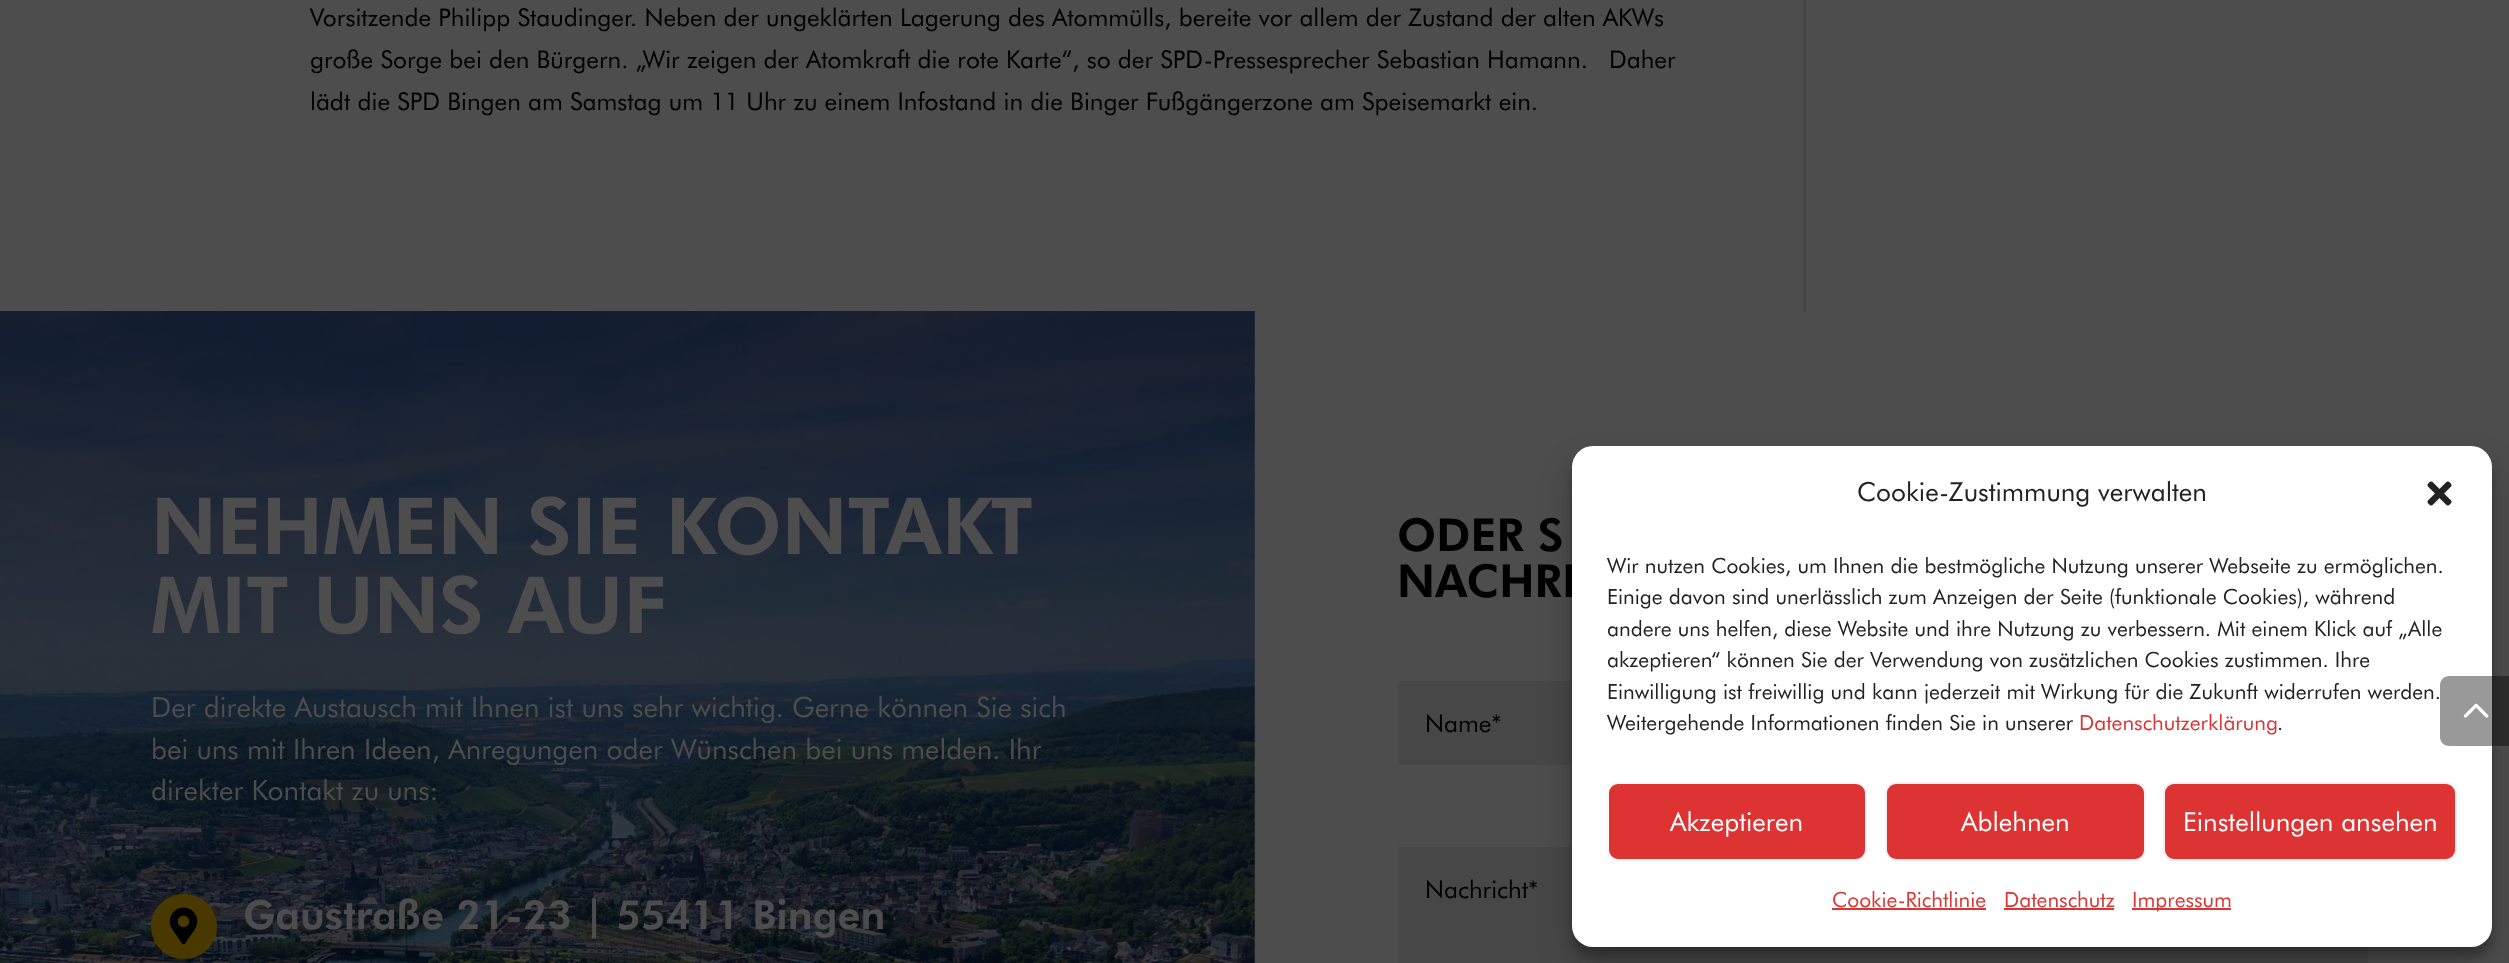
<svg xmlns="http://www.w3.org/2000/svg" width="2509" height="963">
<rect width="100%" height="100%" fill="#4d4d4d"/>
<text x="310" y="26" style="font-family:Futura;font-size:24.5px;fill:#000">Vorsitzende Philipp Staudinger. Neben der ungeklärten Lagerung des Atommülls, bereite vor allem der Zustand der alten AKWs</text>
<text x="310" y="68" style="font-family:Futura;font-size:24.5px;fill:#000">große Sorge bei den Bürgern. „Wir zeigen der Atomkraft die rote Karte“, so der SPD-Pressesprecher Sebastian Hamann.</text>
<text x="1609" y="68" style="font-family:Futura;font-size:24.5px;fill:#000">Daher</text>
<text x="310" y="110" style="font-family:Futura;font-size:24.5px;fill:#000">lädt die SPD Bingen am Samstag um 11 Uhr zu einem Infostand in die Binger Fußgängerzone am Speisemarkt ein.</text>
<rect x="1804" width="2" height="312" fill="#444"/>
<image x="0" y="311" width="1255" height="652" href="media/1.png"/>
<text x="151" y="554" style="font-family:Futura;font-size:78.75px;font-weight:900;fill:#4d4d4d">NEHMEN SIE KONTAKT</text>
<text x="151" y="633" style="font-family:Futura;font-size:78.75px;font-weight:900;fill:#4d4d4d">MIT UNS AUF</text>
<text x="151" y="717" style="font-family:Futura;font-size:28px;fill:#4d4d4d">Der direkte Austausch mit Ihnen ist uns sehr wichtig. Gerne können Sie sich</text>
<text x="151" y="759" style="font-family:Futura;font-size:28px;fill:#4d4d4d">bei uns mit Ihren Ideen, Anregungen oder Wünschen bei uns melden. Ihr</text>
<text x="151" y="800" style="font-family:Futura;font-size:28px;fill:#4d4d4d">direkter Kontakt zu uns:</text>
<rect x="153.5" y="896.5" width="61" height="60" rx="30" fill="#493900" stroke="#493900" stroke-width="5"/>
<image x="169" y="907" width="29" height="38" href="media/2.png"/>
<text x="243" y="929" style="font-family:Futura;font-size:40.25px;font-weight:900;fill:#4d4d4d">Gaustraße 21-23 | 55411 Bingen</text>
<text x="1397" y="551" style="font-family:Futura;font-size:45.5px;font-weight:900;fill:#000">ODER S</text>
<text x="1397" y="597" style="font-family:Futura;font-size:45.5px;font-weight:900;fill:#000">NACHRI</text>
<rect x="1398" y="681" width="174" height="84" fill="#474747"/>
<text x="1425" y="732" style="font-family:Futura;font-size:24.5px;fill:#000">Name*</text>
<rect x="1398" y="847" width="970" height="116" fill="#474747"/>
<text x="1425" y="898" style="font-family:Futura;font-size:24.5px;fill:#000">Nachricht*</text>
<rect x="1572" y="457" width="920" height="500" rx="21" fill="#0000003b" filter="blur(5px)"/>
<rect x="1572" y="464" width="920" height="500" rx="21" fill="#00000030" filter="blur(17.5px)"/>
<rect x="1572" y="446" width="920" height="501" rx="21" fill="#fff"/>
<text x="1857" y="501" style="font-family:Futura;font-size:26.25px;fill:#222">Cookie-Zustimmung verwalten</text>
<image x="2427" y="481" width="25" height="25" href="media/3.png"/>
<text x="1607" y="573" style="font-family:Futura;font-size:21px;fill:#222">Wir nutzen Cookies, um Ihnen die bestmögliche Nutzung unserer Webseite zu ermöglichen.</text>
<text x="1607" y="604" style="font-family:Futura;font-size:21px;fill:#222">Einige davon sind unerlässlich zum Anzeigen der Seite (funktionale Cookies), während</text>
<text x="1607" y="636" style="font-family:Futura;font-size:21px;fill:#222">andere uns helfen, diese Website und ihre Nutzung zu verbessern. Mit einem Klick auf „Alle</text>
<text x="1607" y="667" style="font-family:Futura;font-size:21px;fill:#222">akzeptieren“ können Sie der Verwendung von zusätzlichen Cookies zustimmen. Ihre</text>
<text x="1607" y="699" style="font-family:Futura;font-size:21px;fill:#222">Einwilligung ist freiwillig und kann jederzeit mit Wirkung für die Zukunft widerrufen werden.</text>
<text x="1607" y="730" style="font-family:Futura;font-size:21px;fill:#222">Weitergehende Informationen finden Sie in unserer</text>
<text x="2079" y="730" style="font-family:Futura;font-size:21px;fill:#d33">Datenschutzerklärung</text>
<text x="2277" y="730" style="font-family:Futura;font-size:21px;fill:#222">.</text>
<rect x="1608" y="783" width="258" height="77" rx="10" fill="#d33" stroke="#f9f9f9" stroke-width="2"/>
<text x="1670" y="831" style="font-family:Futura;font-size:26.25px;fill:#fff">Akzeptieren</text>
<rect x="1886" y="783" width="259" height="77" rx="10" fill="#d33" stroke="#f2f2f2" stroke-width="2"/>
<text x="1961" y="831" style="font-family:Futura;font-size:26.25px;fill:#fff">Ablehnen</text>
<rect x="2164" y="783" width="292" height="77" rx="10" fill="#d33" stroke="#f2f2f2" stroke-width="2"/>
<text x="2183" y="831" style="font-family:Futura;font-size:26.25px;fill:#fff">Einstellungen ansehen</text>
<text x="1832" y="907" style="font-family:Futura;font-size:21px;fill:#d33">Cookie-Richtlinie</text>
<rect x="1832" y="908" width="154" height="2" fill="#d33"/>
<text x="2004" y="907" style="font-family:Futura;font-size:21px;fill:#d33">Datenschutz</text>
<rect x="2004" y="908" width="110" height="2" fill="#d33"/>
<rect x="2132" y="908" width="99" height="2" fill="#d33"/>
<text x="2132" y="907" style="font-family:Futura;font-size:21px;fill:#d33">Impressum</text>
<path d="M2449 676h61v70h-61c-5 0-9-4-9-9v-52c0-5 4-9 9-9z" fill="#00000066"/>
<image x="2463" y="703" width="26" height="15" href="media/4.png"/>
</svg>
